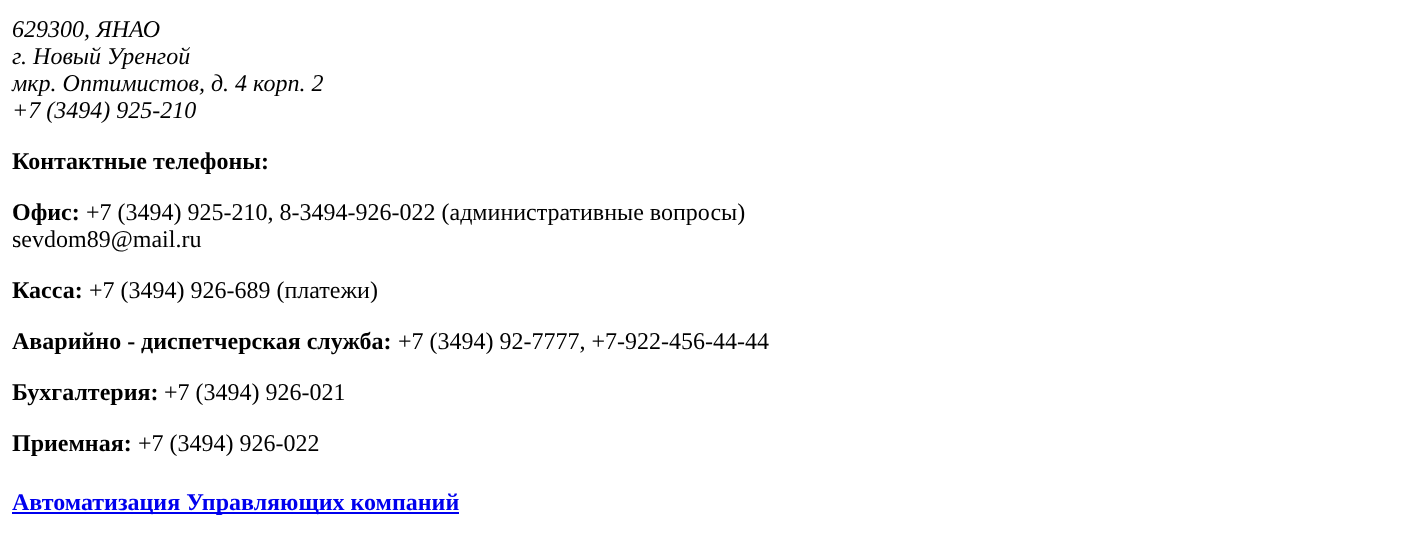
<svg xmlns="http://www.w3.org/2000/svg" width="1401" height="547">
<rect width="100%" height="100%" fill="#fff"/>
<text x="12" y="37" style="font-family:Liberation Serif;font-size:24px;font-style:italic;fill:#000">629300, ЯНАО</text>
<text x="12" y="64" style="font-family:Liberation Serif;font-size:24px;font-style:italic;fill:#000">г. Новый Уренгой</text>
<text x="12" y="91" style="font-family:Liberation Serif;font-size:24px;font-style:italic;fill:#000">мкр. Оптимистов, д. 4 корп. 2</text>
<text x="12" y="118" style="font-family:Liberation Serif;font-size:24px;font-style:italic;fill:#000">+7 (3494) 925-210</text>
<text x="12" y="169" style="font-family:Liberation Serif;font-size:24px;font-weight:bold;fill:#000">Контактные телефоны:</text>
<text x="12" y="220" style="font-family:Liberation Serif;font-size:24px;font-weight:bold;fill:#000">Офис:</text>
<text x="86" y="220" style="font-family:Liberation Serif;font-size:24px;fill:#000">+7 (3494) 925-210, 8-3494-926-022 (административные вопросы)</text>
<text x="12" y="247" style="font-family:Liberation Serif;font-size:24px;fill:#000">sevdom89@mail.ru</text>
<text x="12" y="298" style="font-family:Liberation Serif;font-size:24px;font-weight:bold;fill:#000">Касса:</text>
<text x="89" y="298" style="font-family:Liberation Serif;font-size:24px;fill:#000">+7 (3494) 926-689 (платежи)</text>
<text x="12" y="349" style="font-family:Liberation Serif;font-size:24px;font-weight:bold;fill:#000">Аварийно - диспетчерская служба:</text>
<text x="398" y="349" style="font-family:Liberation Serif;font-size:24px;fill:#000">+7 (3494) 92-7777, +7-922-456-44-44</text>
<text x="12" y="400" style="font-family:Liberation Serif;font-size:24px;font-weight:bold;fill:#000">Бухгалтерия:</text>
<text x="164" y="400" style="font-family:Liberation Serif;font-size:24px;fill:#000">+7 (3494) 926-021</text>
<text x="12" y="451" style="font-family:Liberation Serif;font-size:24px;font-weight:bold;fill:#000">Приемная:</text>
<text x="138" y="451" style="font-family:Liberation Serif;font-size:24px;fill:#000">+7 (3494) 926-022</text>
<rect x="12" y="512" width="447" height="2" fill="#00e"/>
<text x="12" y="510" style="font-family:Liberation Serif;font-size:24px;font-weight:bold;fill:#00e">Автоматизация Управляющих компаний</text>
</svg>
